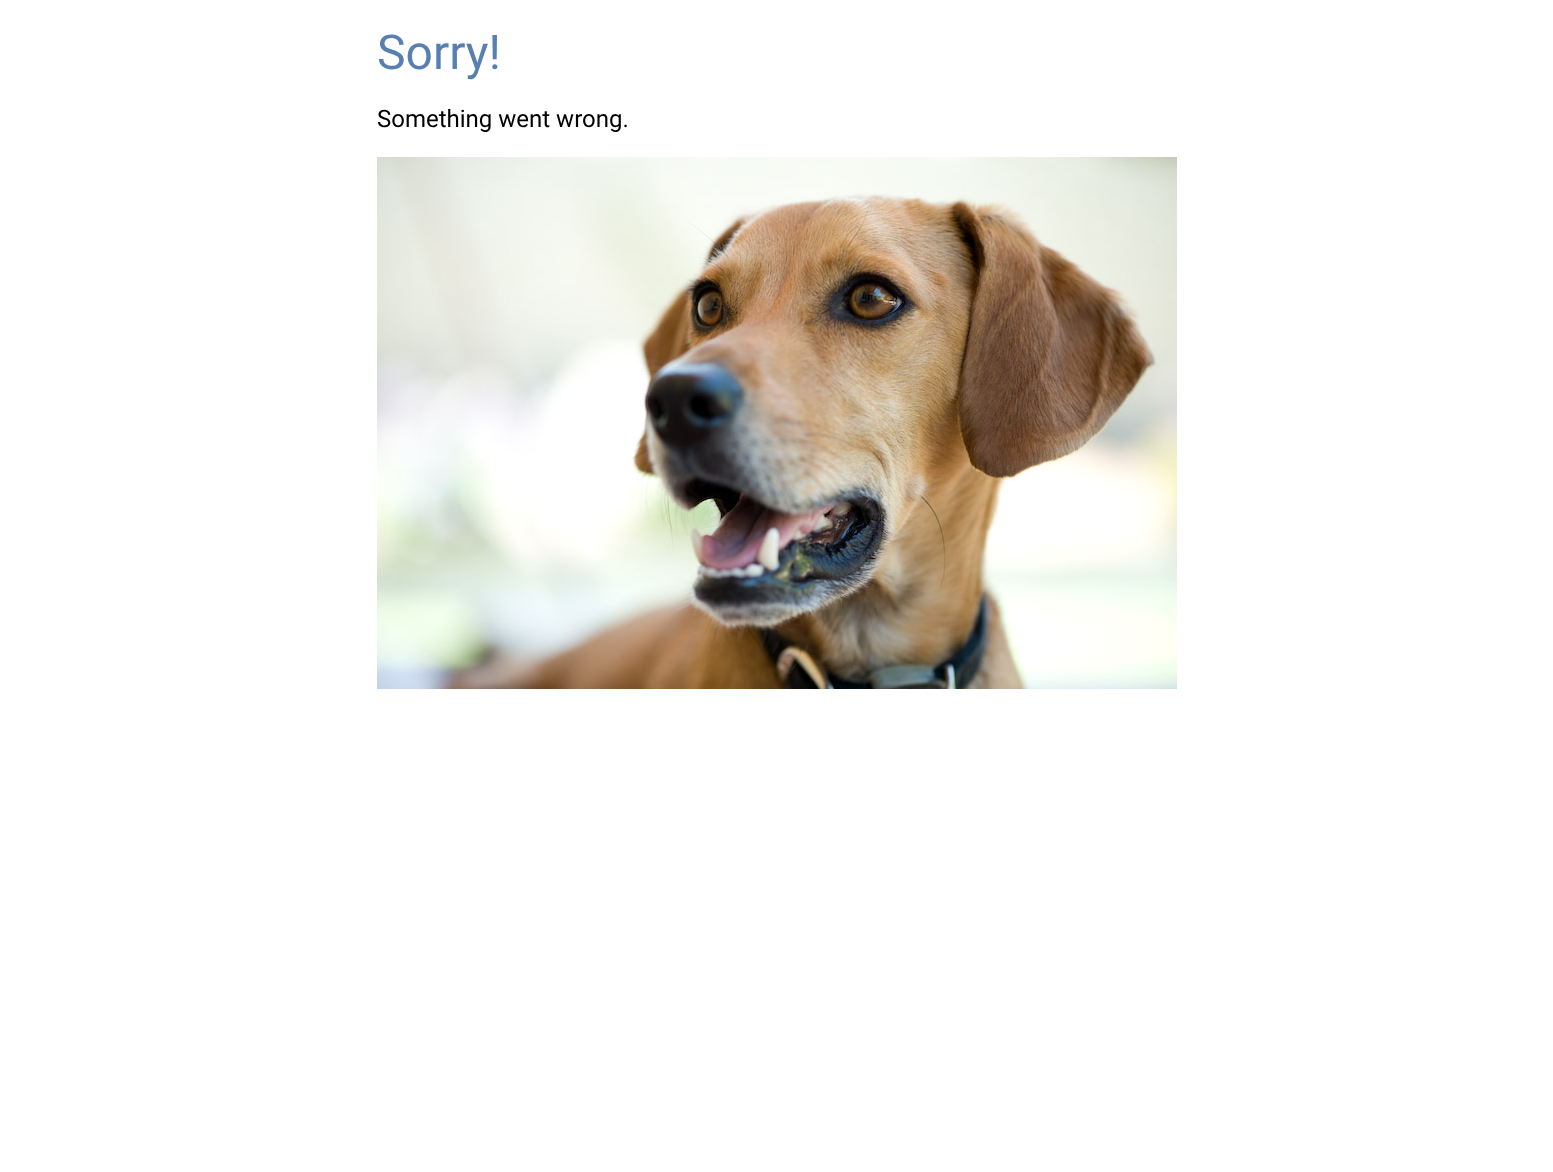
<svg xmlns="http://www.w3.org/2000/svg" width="1553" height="1172">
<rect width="100%" height="100%" fill="#fff"/>
<text x="377" y="69" style="font-family:Roboto;font-size:48px;fill:#577fb0">Sorry!</text>
<text x="377" y="127" style="font-family:Roboto;font-size:24px;fill:#000">Something went wrong.</text>
<image x="377" y="157" width="800" height="532" href="media/1.png"/>
</svg>
